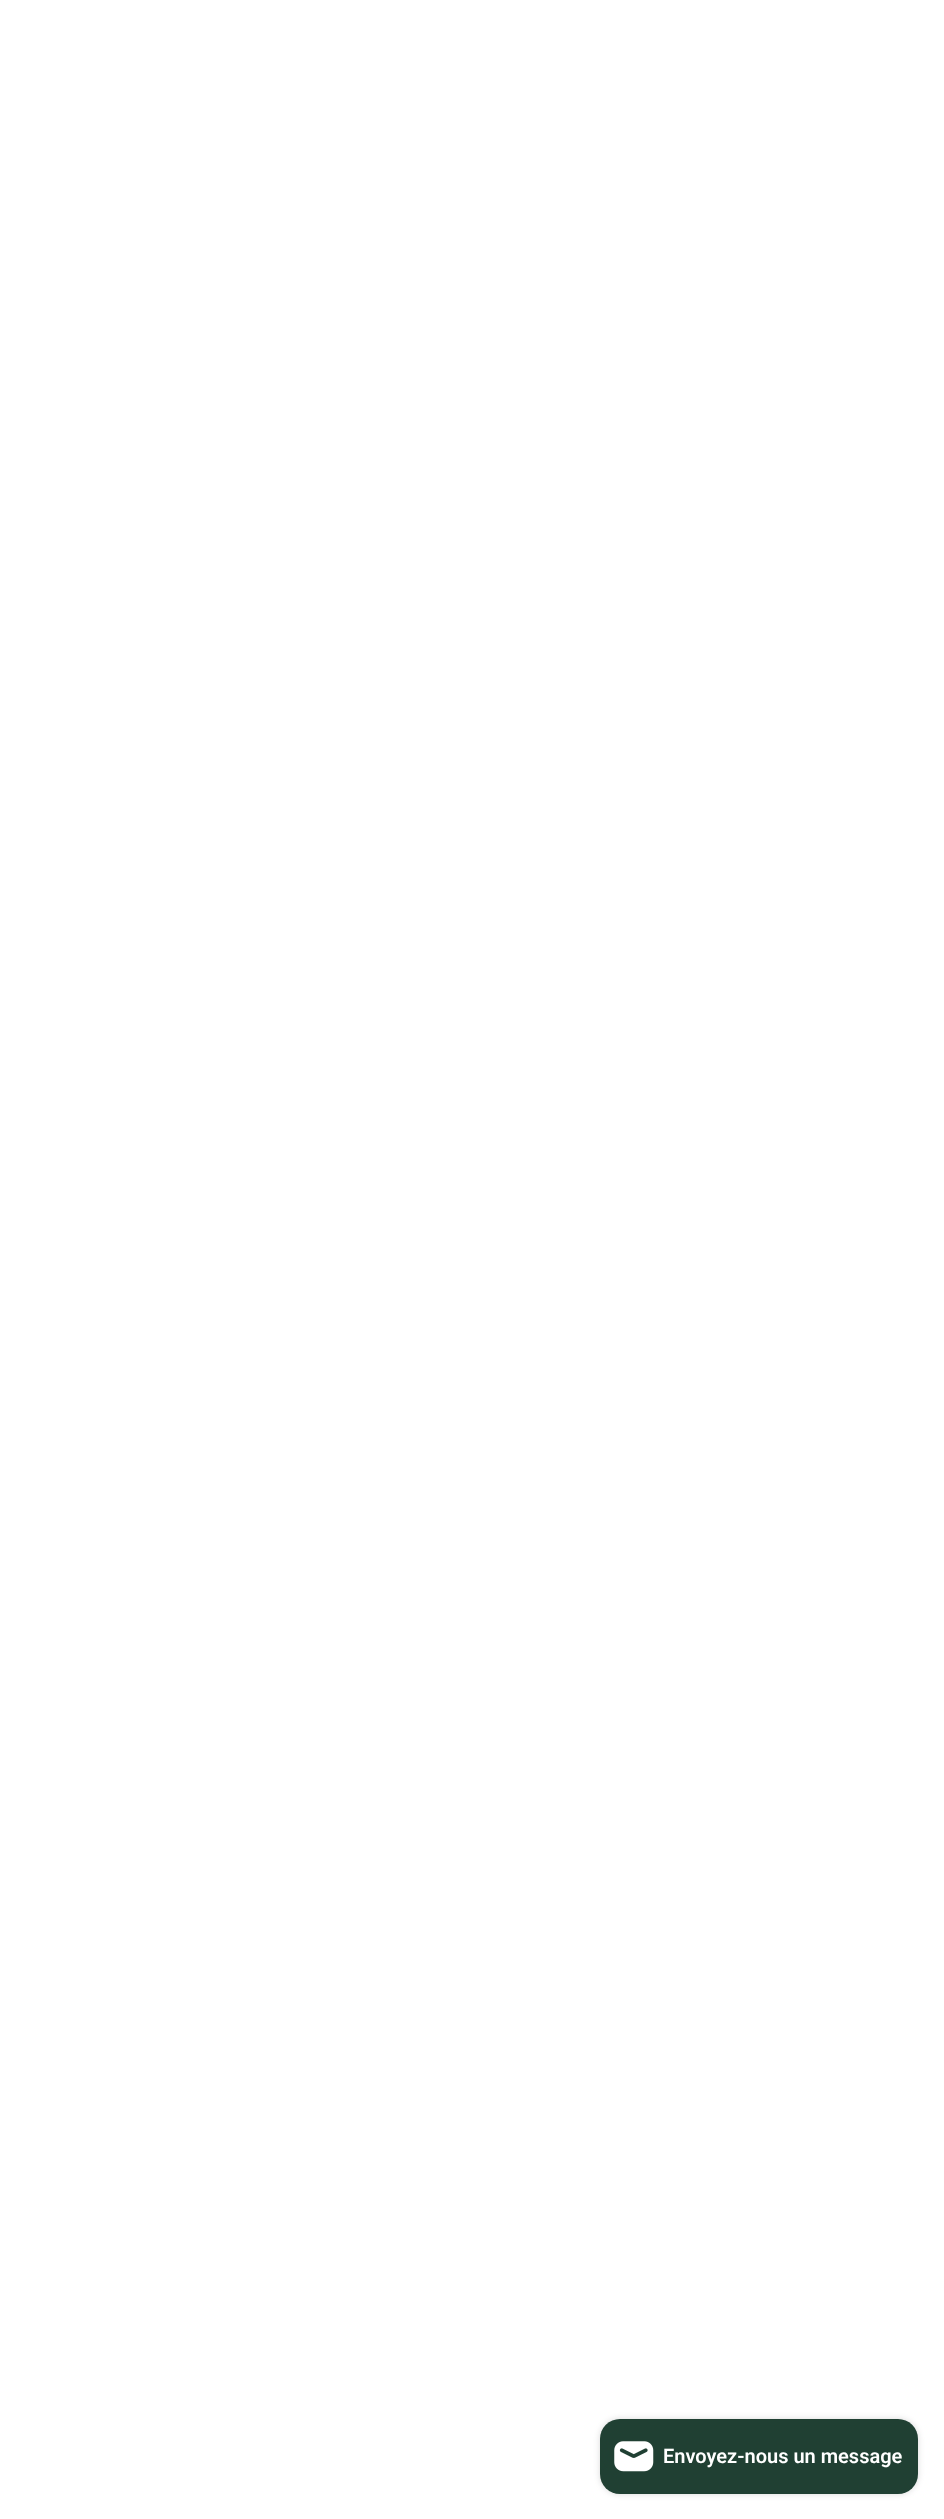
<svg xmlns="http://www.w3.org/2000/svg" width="944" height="2519">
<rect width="100%" height="100%" fill="#fff"/>
<rect x="600" y="2419" width="318" height="75" rx="20" fill="#00000026" filter="blur(3px)"/>
<rect x="600" y="2419" width="318" height="75" rx="20" fill="#204033"/>
<image x="614" y="2441" width="40" height="31" href="media/1.png"/>
<text x="663" y="2463" style="font-family:Roboto;font-size:20px;font-weight:600;fill:#fff">Envoyez-nous un message</text>
</svg>
